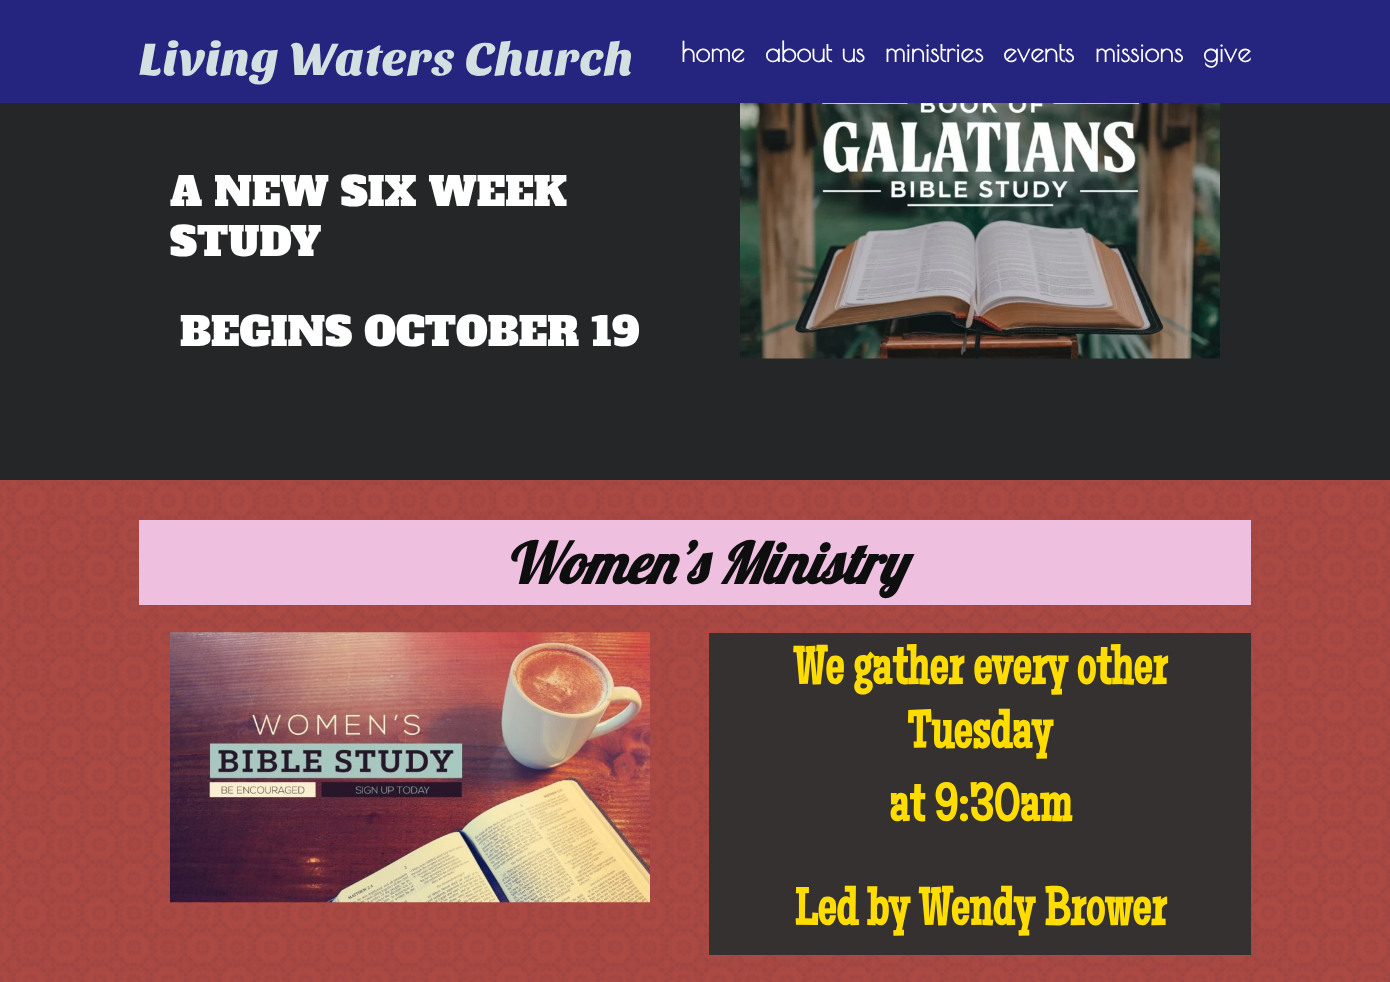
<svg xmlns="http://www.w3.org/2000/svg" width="1390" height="982">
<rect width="100%" height="100%" fill="#242628"/>
<rect width="1390" height="103" fill="#252580"/>
<text x="139" y="75" style="font-family:Sansita One;font-size:47.5px;fill:#d3dfe0">Living Waters Church</text>
<text x="681" y="62" style="font-family:Poiret One;font-size:27.5px;font-weight:bold;fill:#fff">home</text>
<text x="765" y="62" style="font-family:Poiret One;font-size:27.5px;font-weight:bold;fill:#fff">about us</text>
<text x="885" y="62" style="font-family:Poiret One;font-size:27.5px;font-weight:bold;fill:#fff">ministries</text>
<text x="1003" y="62" style="font-family:Poiret One;font-size:27.5px;font-weight:bold;fill:#fff">events</text>
<text x="1095" y="62" style="font-family:Poiret One;font-size:27.5px;font-weight:bold;fill:#fff">missions</text>
<text x="1203" y="62" style="font-family:Poiret One;font-size:27.5px;font-weight:bold;fill:#fff">give</text>
<text x="170" y="206" style="font-family:Alfa Slab One;font-size:40px;fill:#fff">A NEW SIX WEEK</text>
<text x="170" y="256" style="font-family:Alfa Slab One;font-size:40px;fill:#fff">STUDY</text>
<text x="180" y="346" style="font-family:Alfa Slab One;font-size:40px;fill:#fff">BEGINS OCTOBER 19</text>
<image x="740" y="103" width="480" height="256" href="media/1.png"/>
<rect y="480" width="1390" height="502" fill="#ad4a43"/>
<image x="0" y="480" width="1390" height="502" href="media/2.png"/>
<rect x="139" y="520" width="1112" height="85" fill="#efbfe0"/>
<text x="504" y="584" style="font-family:Lobster;font-size:56.75px;font-weight:bold;font-style:italic;fill:#0f0e0e">Women’s Ministry</text>
<image x="170" y="632" width="480" height="271" href="media/3.png"/>
<rect x="709" y="633" width="542" height="322" fill="#343130"/>
<text x="793" y="684" style="font-family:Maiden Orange;font-size:53.25px;font-weight:bold;fill:#fd0">We gather every other</text>
<text x="907" y="748" style="font-family:Maiden Orange;font-size:53.25px;font-weight:bold;fill:#fd0">Tuesday</text>
<text x="889" y="821" style="font-family:Maiden Orange;font-size:53.25px;font-weight:bold;fill:#fd0">at 9:30am</text>
<text x="794" y="925" style="font-family:Maiden Orange;font-size:53.25px;font-weight:bold;fill:#fd0">Led by Wendy Brower</text>
</svg>
